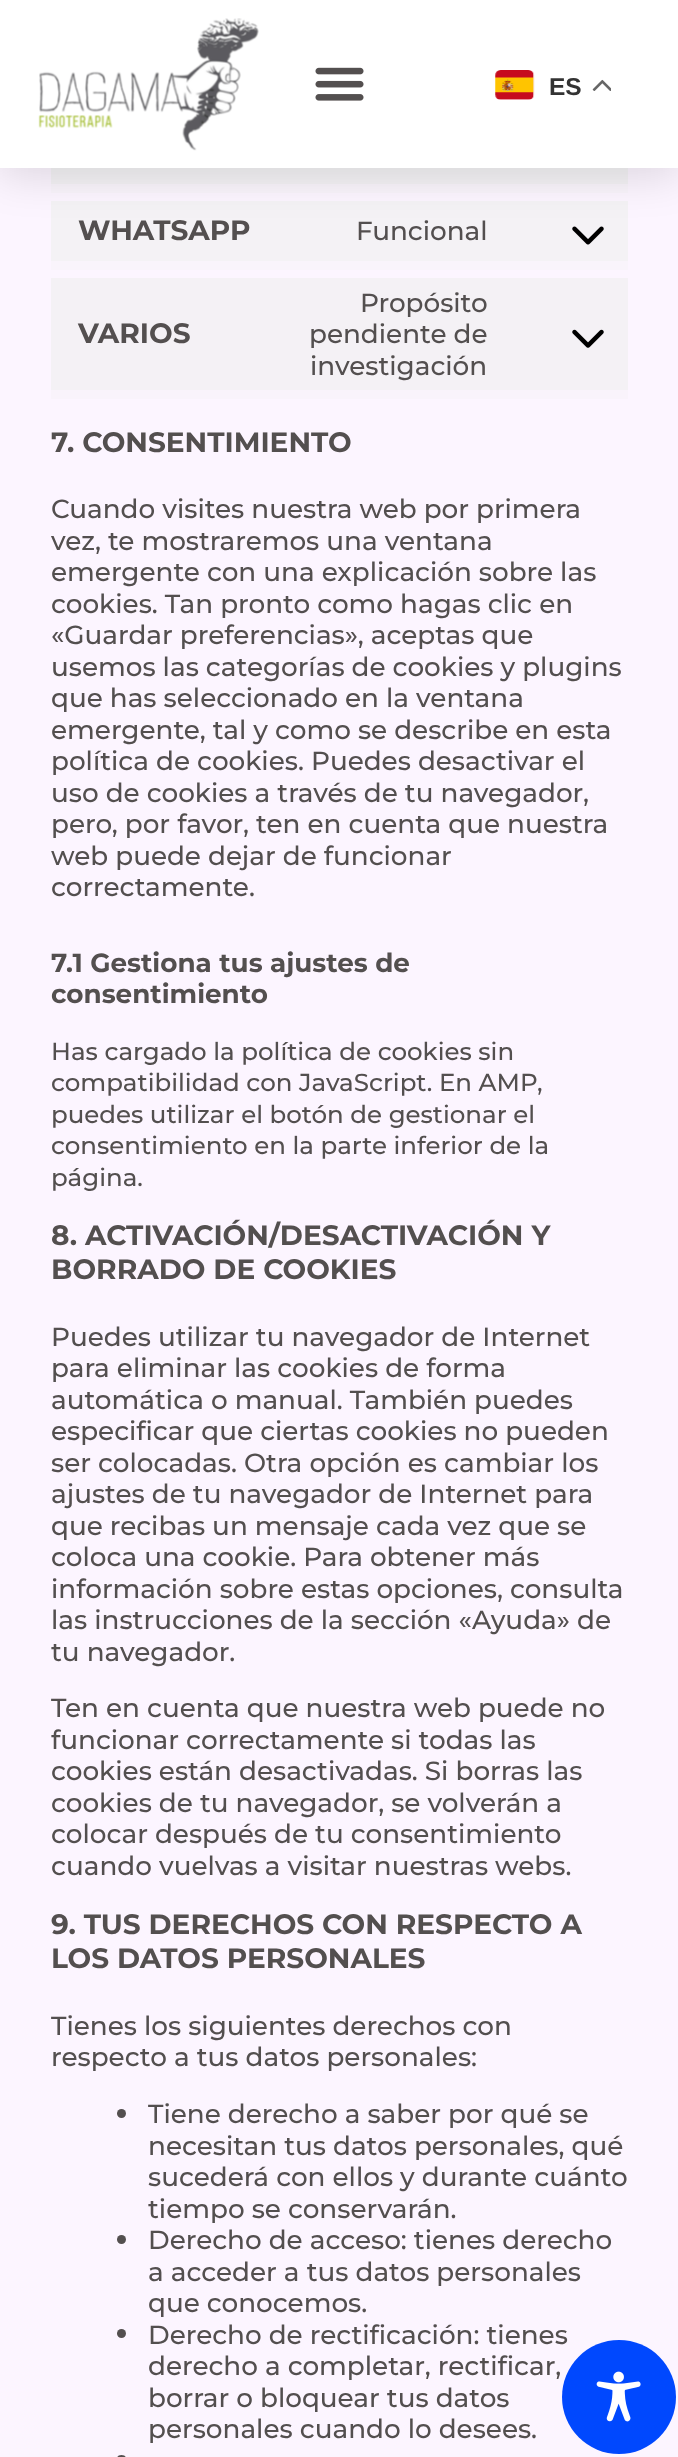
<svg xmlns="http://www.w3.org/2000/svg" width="678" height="2457">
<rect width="100%" height="100%" fill="#fcf5ff"/>
<rect x="51" y="184" width="577" height="9" fill="#f9f4fb"/>
<rect x="51" y="168" width="577" height="16" fill="#f4f2f5"/>
<rect x="51" y="201" width="577" height="60" fill="#f4f2f5"/>
<image x="572" y="226" width="32" height="19" href="media/5.png"/>
<rect y="9" width="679" height="168" fill="#0000001f" filter="blur(21px)"/>
<rect width="678" height="168" fill="#fff"/>
<image x="38" y="18" width="221" height="133" href="media/1.png"/>
<image x="315" y="67" width="49" height="34" href="media/2.png"/>
<image x="495" y="70" width="40" height="30" href="media/3.png"/>
<text x="549" y="95" style="font-family:Liberation Sans;font-size:24.5px;font-weight:bold;fill:#333">ES</text>
<image x="592" y="79" width="19" height="12" href="media/4.png"/>
<rect x="51" y="261" width="577" height="9" fill="#f9f4fb"/>
<text x="78" y="240" style="font-family:Montserrat;font-size:28px;font-weight:bold;fill:#534f4f">WHATSAPP</text>
<text x="356" y="240" style="font-family:Montserrat;font-size:26.25px;font-weight:500;fill:#534f4f">Funcional</text>
<rect x="51" y="390" width="577" height="9" fill="#f9f3fb"/>
<rect x="51" y="278" width="577" height="112" fill="#f4f1f5"/>
<text x="78" y="343" style="font-family:Montserrat;font-size:28px;font-weight:bold;fill:#534f4f">VARIOS</text>
<text x="360" y="312" style="font-family:Montserrat;font-size:26.25px;font-weight:500;fill:#534f4f">Propósito</text>
<text x="309" y="343" style="font-family:Montserrat;font-size:26.25px;font-weight:500;fill:#534f4f">pendiente de</text>
<text x="310" y="375" style="font-family:Montserrat;font-size:26.25px;font-weight:500;fill:#534f4f">investigación</text>
<image x="572" y="329" width="32" height="19" href="media/6.png"/>
<text x="51" y="452" style="font-family:Montserrat;font-size:28px;font-weight:bold;fill:#534f4f">7. CONSENTIMIENTO</text>
<text x="51" y="518" style="font-family:Montserrat;font-size:26.25px;font-weight:500;fill:#534f4f">Cuando visites nuestra web por primera</text>
<text x="51" y="550" style="font-family:Montserrat;font-size:26.25px;font-weight:500;fill:#534f4f">vez, te mostraremos una ventana</text>
<text x="51" y="581" style="font-family:Montserrat;font-size:26.25px;font-weight:500;fill:#534f4f">emergente con una explicación sobre las</text>
<text x="51" y="613" style="font-family:Montserrat;font-size:26.25px;font-weight:500;fill:#534f4f">cookies. Tan pronto como hagas clic en</text>
<text x="51" y="644" style="font-family:Montserrat;font-size:26.25px;font-weight:500;fill:#534f4f">«Guardar preferencias», aceptas que</text>
<text x="51" y="676" style="font-family:Montserrat;font-size:26.25px;font-weight:500;fill:#534f4f">usemos las categorías de cookies y plugins</text>
<text x="51" y="707" style="font-family:Montserrat;font-size:26.25px;font-weight:500;fill:#534f4f">que has seleccionado en la ventana</text>
<text x="51" y="739" style="font-family:Montserrat;font-size:26.25px;font-weight:500;fill:#534f4f">emergente, tal y como se describe en esta</text>
<text x="51" y="770" style="font-family:Montserrat;font-size:26.25px;font-weight:500;fill:#534f4f">política de cookies. Puedes desactivar el</text>
<text x="51" y="802" style="font-family:Montserrat;font-size:26.25px;font-weight:500;fill:#534f4f">uso de cookies a través de tu navegador,</text>
<text x="51" y="833" style="font-family:Montserrat;font-size:26.25px;font-weight:500;fill:#534f4f">pero, por favor, ten en cuenta que nuestra</text>
<text x="51" y="865" style="font-family:Montserrat;font-size:26.25px;font-weight:500;fill:#534f4f">web puede dejar de funcionar</text>
<text x="51" y="896" style="font-family:Montserrat;font-size:26.25px;font-weight:500;fill:#534f4f">correctamente.</text>
<text x="51" y="972" style="font-family:Montserrat;font-size:26.25px;font-weight:bold;fill:#534f4f">7.1 Gestiona tus ajustes de</text>
<text x="51" y="1003" style="font-family:Montserrat;font-size:26.25px;font-weight:bold;fill:#534f4f">consentimiento</text>
<text x="51" y="1060" style="font-family:Montserrat;font-size:24.5px;font-weight:500;fill:#534f4f">Has cargado la política de cookies sin</text>
<text x="51" y="1091" style="font-family:Montserrat;font-size:24.5px;font-weight:500;fill:#534f4f">compatibilidad con JavaScript. En AMP,</text>
<text x="51" y="1123" style="font-family:Montserrat;font-size:24.5px;font-weight:500;fill:#534f4f">puedes utilizar el botón de gestionar el</text>
<text x="51" y="1154" style="font-family:Montserrat;font-size:24.5px;font-weight:500;fill:#534f4f">consentimiento en la parte inferior de la</text>
<text x="51" y="1186" style="font-family:Montserrat;font-size:24.5px;font-weight:500;fill:#534f4f">página.</text>
<text x="51" y="1245" style="font-family:Montserrat;font-size:28px;font-weight:bold;fill:#534f4f">8. ACTIVACIÓN/DESACTIVACIÓN Y</text>
<text x="51" y="1279" style="font-family:Montserrat;font-size:28px;font-weight:bold;fill:#534f4f">BORRADO DE COOKIES</text>
<text x="51" y="1346" style="font-family:Montserrat;font-size:26.25px;font-weight:500;fill:#534f4f">Puedes utilizar tu navegador de Internet</text>
<text x="51" y="1377" style="font-family:Montserrat;font-size:26.25px;font-weight:500;fill:#534f4f">para eliminar las cookies de forma</text>
<text x="51" y="1409" style="font-family:Montserrat;font-size:26.25px;font-weight:500;fill:#534f4f">automática o manual. También puedes</text>
<text x="51" y="1440" style="font-family:Montserrat;font-size:26.25px;font-weight:500;fill:#534f4f">especificar que ciertas cookies no pueden</text>
<text x="51" y="1472" style="font-family:Montserrat;font-size:26.25px;font-weight:500;fill:#534f4f">ser colocadas. Otra opción es cambiar los</text>
<text x="51" y="1503" style="font-family:Montserrat;font-size:26.25px;font-weight:500;fill:#534f4f">ajustes de tu navegador de Internet para</text>
<text x="51" y="1535" style="font-family:Montserrat;font-size:26.25px;font-weight:500;fill:#534f4f">que recibas un mensaje cada vez que se</text>
<text x="51" y="1566" style="font-family:Montserrat;font-size:26.25px;font-weight:500;fill:#534f4f">coloca una cookie. Para obtener más</text>
<text x="51" y="1598" style="font-family:Montserrat;font-size:26.25px;font-weight:500;fill:#534f4f">información sobre estas opciones, consulta</text>
<text x="51" y="1629" style="font-family:Montserrat;font-size:26.25px;font-weight:500;fill:#534f4f">las instrucciones de la sección «Ayuda» de</text>
<text x="51" y="1661" style="font-family:Montserrat;font-size:26.25px;font-weight:500;fill:#534f4f">tu navegador.</text>
<text x="51" y="1717" style="font-family:Montserrat;font-size:26.25px;font-weight:500;fill:#534f4f">Ten en cuenta que nuestra web puede no</text>
<text x="51" y="1749" style="font-family:Montserrat;font-size:26.25px;font-weight:500;fill:#534f4f">funcionar correctamente si todas las</text>
<text x="51" y="1780" style="font-family:Montserrat;font-size:26.25px;font-weight:500;fill:#534f4f">cookies están desactivadas. Si borras las</text>
<text x="51" y="1812" style="font-family:Montserrat;font-size:26.25px;font-weight:500;fill:#534f4f">cookies de tu navegador, se volverán a</text>
<text x="51" y="1843" style="font-family:Montserrat;font-size:26.25px;font-weight:500;fill:#534f4f">colocar después de tu consentimiento</text>
<text x="51" y="1875" style="font-family:Montserrat;font-size:26.25px;font-weight:500;fill:#534f4f">cuando vuelvas a visitar nuestras webs.</text>
<text x="51" y="1934" style="font-family:Montserrat;font-size:28px;font-weight:bold;fill:#534f4f">9. TUS DERECHOS CON RESPECTO A</text>
<text x="51" y="1968" style="font-family:Montserrat;font-size:28px;font-weight:bold;fill:#534f4f">LOS DATOS PERSONALES</text>
<text x="51" y="2035" style="font-family:Montserrat;font-size:26.25px;font-weight:500;fill:#534f4f">Tienes los siguientes derechos con</text>
<text x="51" y="2066" style="font-family:Montserrat;font-size:26.25px;font-weight:500;fill:#534f4f">respecto a tus datos personales:</text>
<circle cx="121.5" cy="2113.5" r="4.5" fill="#534f4f"/>
<text x="148" y="2123" style="font-family:Montserrat;font-size:26.25px;font-weight:500;fill:#534f4f">Tiene derecho a saber por qué se</text>
<text x="148" y="2155" style="font-family:Montserrat;font-size:26.25px;font-weight:500;fill:#534f4f">necesitan tus datos personales, qué</text>
<text x="148" y="2186" style="font-family:Montserrat;font-size:26.25px;font-weight:500;fill:#534f4f">sucederá con ellos y durante cuánto</text>
<text x="148" y="2218" style="font-family:Montserrat;font-size:26.25px;font-weight:500;fill:#534f4f">tiempo se conservarán.</text>
<circle cx="121.5" cy="2239.5" r="4.5" fill="#534f4f"/>
<text x="148" y="2249" style="font-family:Montserrat;font-size:26.25px;font-weight:500;fill:#534f4f">Derecho de acceso: tienes derecho</text>
<text x="148" y="2281" style="font-family:Montserrat;font-size:26.25px;font-weight:500;fill:#534f4f">a acceder a tus datos personales</text>
<text x="148" y="2312" style="font-family:Montserrat;font-size:26.25px;font-weight:500;fill:#534f4f">que conocemos.</text>
<circle cx="121.5" cy="2333.5" r="4.5" fill="#534f4f"/>
<text x="148" y="2344" style="font-family:Montserrat;font-size:26.25px;font-weight:500;fill:#534f4f">Derecho de rectificación: tienes</text>
<text x="148" y="2375" style="font-family:Montserrat;font-size:26.25px;font-weight:500;fill:#534f4f">derecho a completar, rectificar,</text>
<text x="148" y="2407" style="font-family:Montserrat;font-size:26.25px;font-weight:500;fill:#534f4f">borrar o bloquear tus datos</text>
<text x="148" y="2438" style="font-family:Montserrat;font-size:26.25px;font-weight:500;fill:#534f4f">personales cuando lo desees.</text>
<rect x="117" y="2455" width="9" height="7" rx="4.5" fill="#534f4f"/>
<circle cx="619" cy="2397" r="57" fill="#0048fe"/>
<image x="596" y="2371" width="45" height="51" href="media/7.png"/>
</svg>
